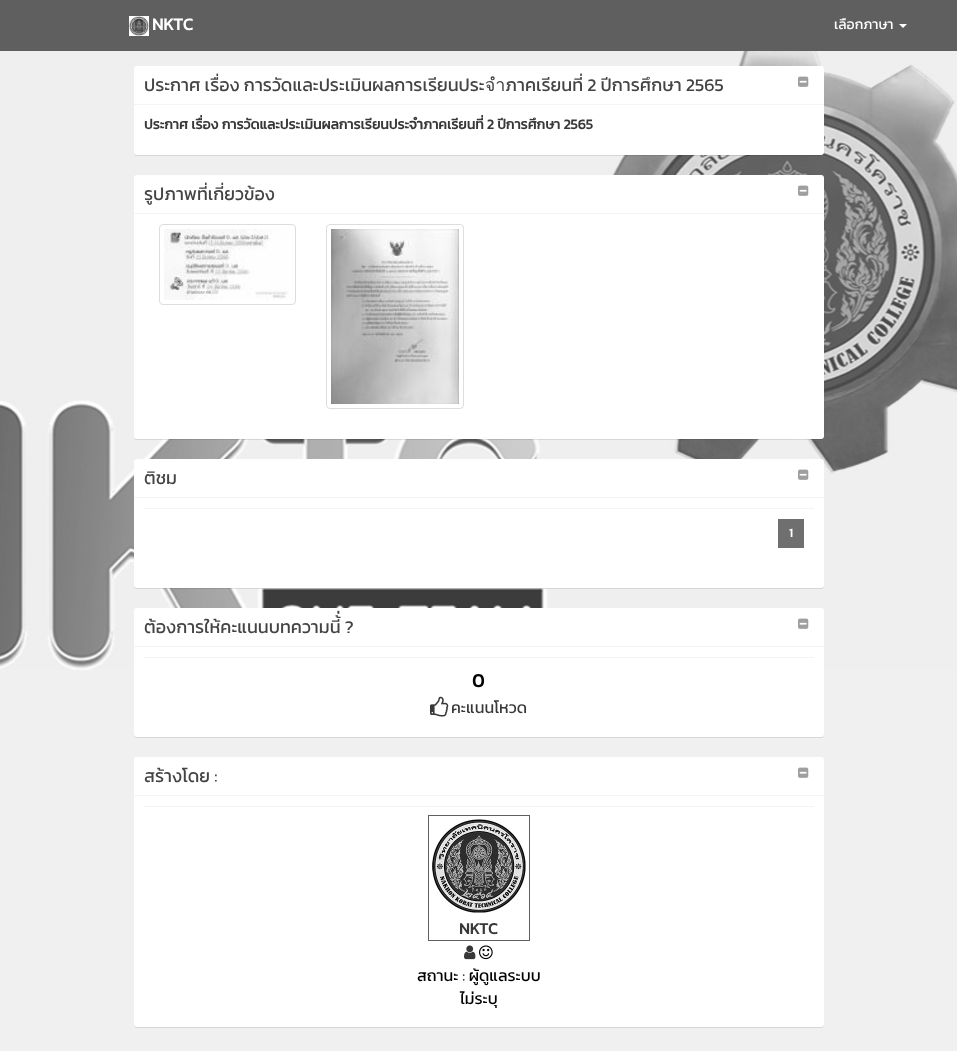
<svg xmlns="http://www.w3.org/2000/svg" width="957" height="1051">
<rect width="100%" height="100%" fill="#f0f0f0"/>
<rect width="957" height="51" fill="#5f5f5f"/>
<image x="129" y="16" width="20" height="20" href="media/1.png"/>
<text x="152" y="30" style="font-family:Kanit;font-size:17px;font-weight:bold;fill:#fff">NKTC</text>
<text x="834" y="29" style="font-family:Kanit;font-size:14px;fill:#fff">เลือกภาษา</text>
<path d="M899 24h8l-4 4z" fill="#fff"/>
<image x="0" y="51" width="957" height="619" href="media/2.png"/>
<rect x="134" y="67" width="690" height="89" rx="3" fill="#0000001a" filter="blur(0.5px)"/>
<rect x="134" y="66" width="690" height="89" rx="3" fill="#fff"/>
<rect x="134" y="104" width="690" height="1" fill="#f4f4f4"/>
<text x="144" y="91" style="font-family:Kanit;font-size:18px;fill:#444">ประกาศ เรื่อง การวัดและประเมินผลการเรียนประจำภาคเรียนที่ 2 ปีการศึกษา 2565</text>
<image x="798" y="76" width="11" height="11" href="media/3.png"/>
<text x="144" y="129" style="font-family:Kanit;font-size:14px;font-weight:bold;fill:#383838">ประกาศ เรื่อง การวัดและประเมินผลการเรียนประจำภาคเรียนที่ 2 ปีการศึกษา 2565</text>
<rect x="134" y="176" width="690" height="264" rx="3" fill="#0000001a" filter="blur(0.5px)"/>
<rect x="134" y="175" width="690" height="264" rx="3" fill="#fff"/>
<rect x="134" y="213" width="690" height="1" fill="#f4f4f4"/>
<text x="144" y="200" style="font-family:Kanit;font-size:18px;fill:#444">รูปภาพที่เกี่ยวข้อง</text>
<image x="798" y="185" width="11" height="11" href="media/3.png"/>
<rect x="159.5" y="224.5" width="136" height="80" rx="3.5" fill="none" stroke="#ddd"/>
<image x="164" y="229" width="125" height="71" href="media/4.png"/>
<rect x="326.5" y="224.5" width="137" height="184" rx="3.5" fill="none" stroke="#ddd"/>
<image x="331" y="229" width="128" height="175" href="media/5.png"/>
<rect x="134" y="460" width="690" height="129" rx="3" fill="#0000001a" filter="blur(0.5px)"/>
<rect x="134" y="459" width="690" height="129" rx="3" fill="#fff"/>
<rect x="134" y="497" width="690" height="1" fill="#f4f4f4"/>
<text x="144" y="484" style="font-family:Kanit;font-size:18px;fill:#444">ติชม</text>
<image x="798" y="469" width="11" height="11" href="media/3.png"/>
<rect x="144" y="508" width="670" height="1" fill="#f4f4f4"/>
<rect x="778" y="519" width="26" height="29" fill="#6f6f6f"/>
<text x="789" y="537" style="font-family:Kanit;font-size:12px;font-weight:bold;fill:#fff">1</text>
<rect x="134" y="609" width="690" height="129" rx="3" fill="#0000001a" filter="blur(0.5px)"/>
<rect x="134" y="608" width="690" height="129" rx="3" fill="#fff"/>
<rect x="134" y="646" width="690" height="1" fill="#f4f4f4"/>
<text x="144" y="633" style="font-family:Kanit;font-size:18px;fill:#444">ต้องการให้คะแนนบทความนี้่ ?</text>
<image x="798" y="618" width="11" height="11" href="media/3.png"/>
<rect x="143" y="657" width="671" height="1" fill="#f4f4f4"/>
<text x="472" y="687" style="font-family:Kanit;font-size:19px;font-weight:bold;fill:#000">0</text>
<image x="430" y="696" width="19" height="21" href="media/6.png"/>
<text x="451" y="713" style="font-family:Kanit;font-size:16px;fill:#383838">คะแนนโหวด</text>
<rect x="134" y="758" width="690" height="270" rx="3" fill="#0000001a" filter="blur(0.5px)"/>
<rect x="134" y="757" width="690" height="270" rx="3" fill="#fff"/>
<rect x="134" y="795" width="690" height="1" fill="#f4f4f4"/>
<text x="144" y="782" style="font-family:Kanit;font-size:18px;fill:#444">สร้างโดย :</text>
<image x="798" y="767" width="11" height="11" href="media/3.png"/>
<rect x="143" y="806" width="671" height="1" fill="#f4f4f4"/>
<rect x="428" y="815" width="102" height="1" fill="#5f5f5f"/>
<rect x="529" y="815" width="1" height="126" fill="#5f5f5f"/>
<rect x="428" y="940" width="102" height="1" fill="#5f5f5f"/>
<rect x="428" y="815" width="1" height="126" fill="#5f5f5f"/>
<image x="432" y="819" width="94" height="94" href="media/7.png"/>
<text x="459" y="934" style="font-family:Kanit;font-size:16px;font-weight:bold;fill:#383838">NKTC</text>
<image x="464" y="945" width="12" height="15" href="media/8.png"/>
<image x="479" y="945" width="14" height="15" href="media/9.png"/>
<text x="417" y="981" style="font-family:Kanit;font-size:16px;fill:#000">สถานะ : ผู้ดูแลระบบ</text>
<text x="460" y="1004" style="font-family:Kanit;font-size:16px;fill:#000">ไม่ระบุ</text>
</svg>
